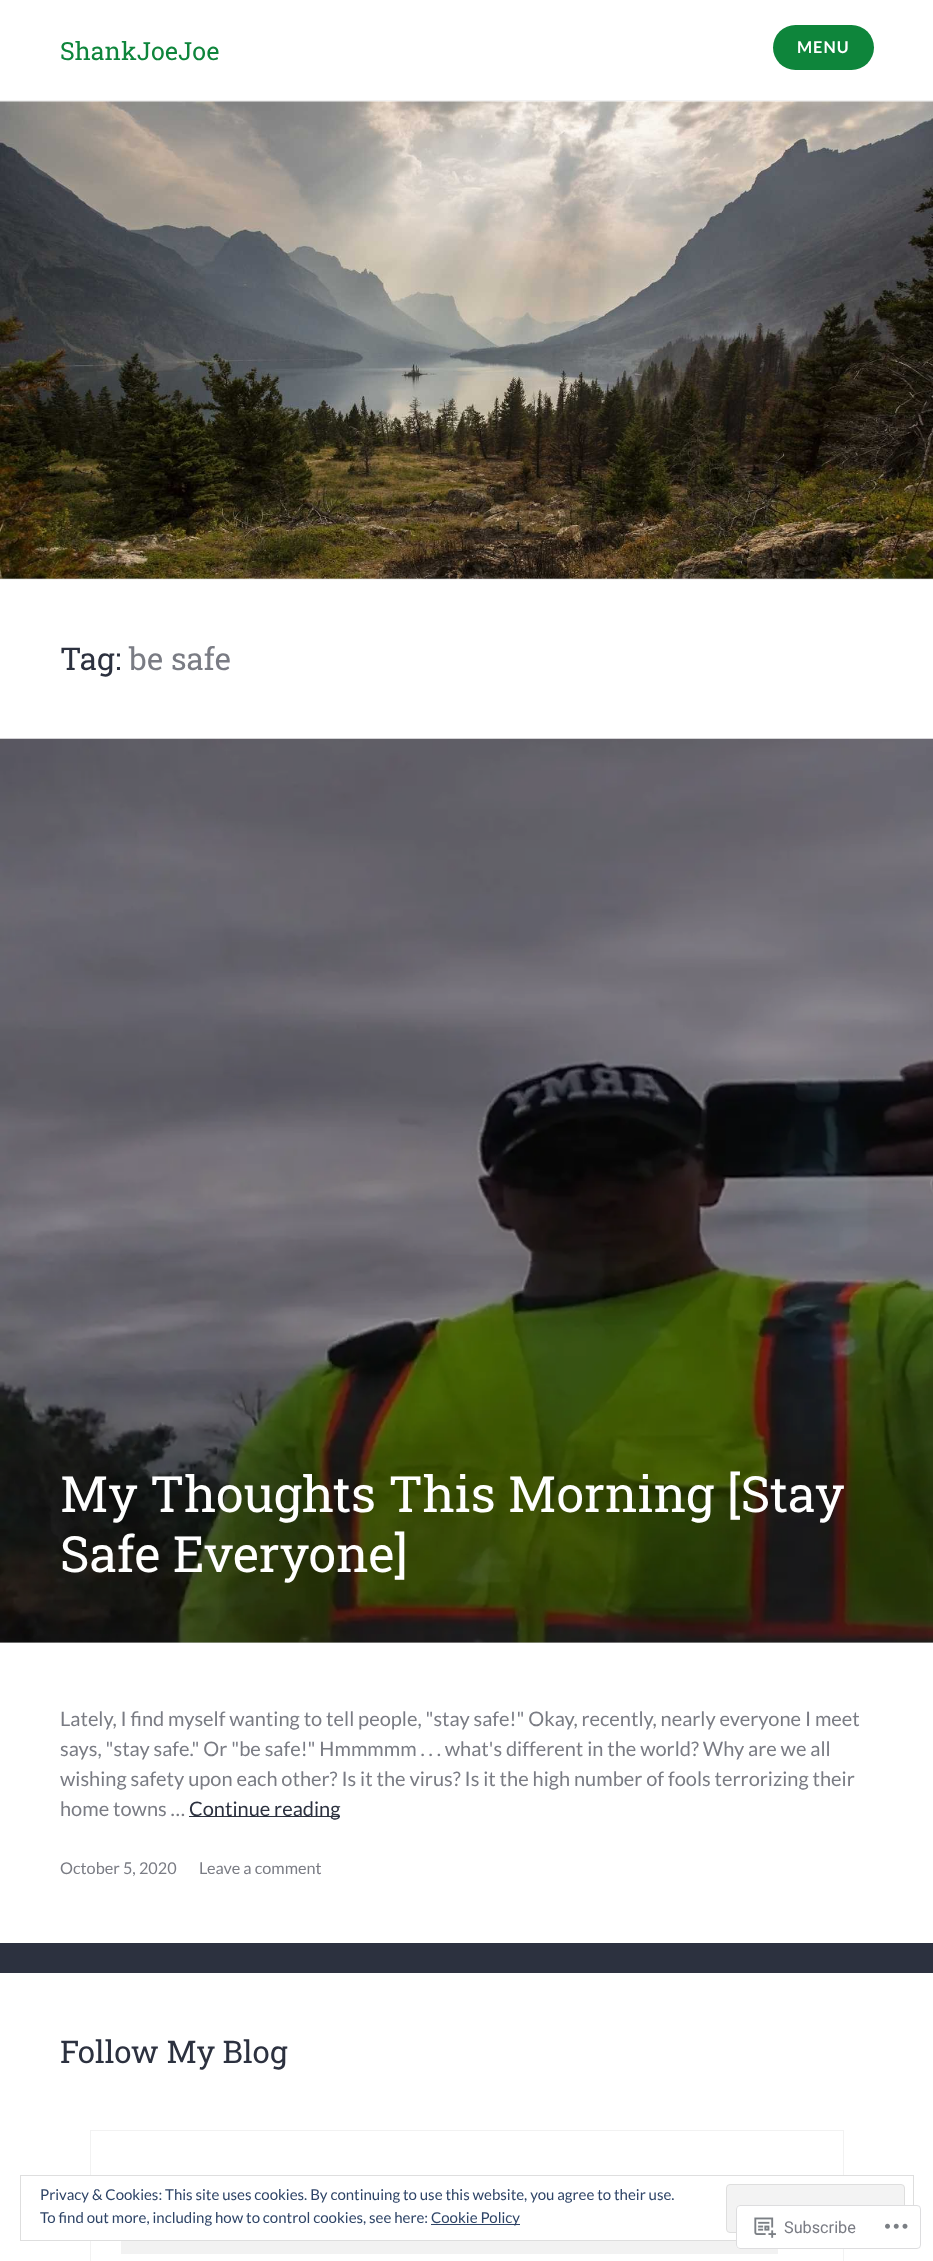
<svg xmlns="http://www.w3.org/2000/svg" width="933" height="2261">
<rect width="100%" height="100%" fill="#fff"/>
<rect y="1642" width="933" height="1" fill="#ccc"/>
<rect y="100" width="933" height="1" fill="#f2f2f2"/>
<text x="60" y="60" style="font-family:Roboto Slab;font-size:25px;fill:#0e853b">ShankJoeJoe</text>
<rect x="773" y="25" width="101" height="45" rx="22.5" fill="#0e853b"/>
<text x="797" y="53" style="font-family:Lato;font-size:16.25px;font-weight:bold;letter-spacing:1px;fill:#fff">MENU</text>
<rect y="579" width="933" height="1" fill="#f2f2f2"/>
<image x="0" y="101" width="933" height="478" href="media/1.png"/>
<rect y="738" width="933" height="1" fill="#f2f2f2"/>
<text x="60" y="670" style="font-family:Roboto Slab;font-size:31.25px;fill:#2c313f">Tag:</text>
<text x="129" y="670" style="font-family:Roboto Slab;font-size:31.25px;fill:#7a7c84">be safe</text>
<image x="0" y="738" width="933" height="905" href="media/2.png"/>
<text x="60" y="1512" style="font-family:Roboto Slab;font-size:50px;fill:#fff">My Thoughts This Morning [Stay</text>
<text x="60" y="1572" style="font-family:Roboto Slab;font-size:50px;fill:#fff">Safe Everyone]</text>
<text x="60" y="1726" style="font-family:Lato;font-size:20px;fill:#7a7c84">Lately, I find myself wanting to tell people, "stay safe!" Okay, recently, nearly everyone I meet</text>
<text x="60" y="1756" style="font-family:Lato;font-size:20px;fill:#7a7c84">says, "stay safe." Or "be safe!" Hmmmmm . . . what's different in the world? Why are we all</text>
<text x="60" y="1786" style="font-family:Lato;font-size:20px;fill:#7a7c84">wishing safety upon each other? Is it the virus? Is it the high number of fools terrorizing their</text>
<text x="60" y="1816" style="font-family:Lato;font-size:20px;fill:#7a7c84">home towns …</text>
<rect x="189" y="1816" width="151" height="1" fill="#2c313f"/>
<text x="189" y="1816" style="font-family:Lato;font-size:20px;fill:#2c313f">Continue reading</text>
<text x="60" y="1874" style="font-family:Lato;font-size:16.25px;fill:#7a7c84">October 5, 2020</text>
<text x="199" y="1874" style="font-family:Lato;font-size:16.25px;fill:#7a7c84">Leave a comment</text>
<rect y="1943" width="933" height="30" fill="#2c313f"/>
<text x="60" y="2063" style="font-family:Roboto Slab;font-size:31.25px;fill:#2c313f">Follow My Blog</text>
<rect x="90.5" y="2130.5" width="753" height="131" fill="none" stroke="#f2f2f2"/>
<rect x="121" y="2241" width="657" height="13" fill="#f2f2f2"/>
<rect x="90" y="2176" width="754" height="64" fill="#fff"/>
<rect x="20.5" y="2175.5" width="893" height="65" fill="none" stroke="#dedede"/>
<text x="40" y="2200" style="font-family:Lato;font-size:15px;fill:#2e4467">Privacy &amp; Cookies: This site uses cookies. By continuing to use this website, you agree to their use.</text>
<rect x="726.5" y="2184.5" width="178" height="48" rx="3.5" fill="#f3f3f3" stroke="#dedede"/>
<text x="40" y="2223" style="font-family:Lato;font-size:15px;fill:#2e4467">To find out more, including how to control cookies, see here:</text>
<rect x="431" y="2224" width="89" height="1" fill="#2e4467"/>
<text x="431" y="2223" style="font-family:Lato;font-size:15px;fill:#2e4467">Cookie Policy</text>
<rect x="736" y="2205" width="185" height="44" rx="4" fill="#fffffffa"/>
<rect x="736.5" y="2205.5" width="184" height="43" rx="3.5" fill="none" stroke="#dcdcdefa"/>
<image x="754" y="2217" width="22" height="21" href="media/3.png"/>
<text x="784" y="2233" style="font-family:Roboto;font-size:16.25px;fill:#7a7c84">Subscribe</text>
<image x="885" y="2223" width="23" height="6" href="media/4.png"/>
</svg>
